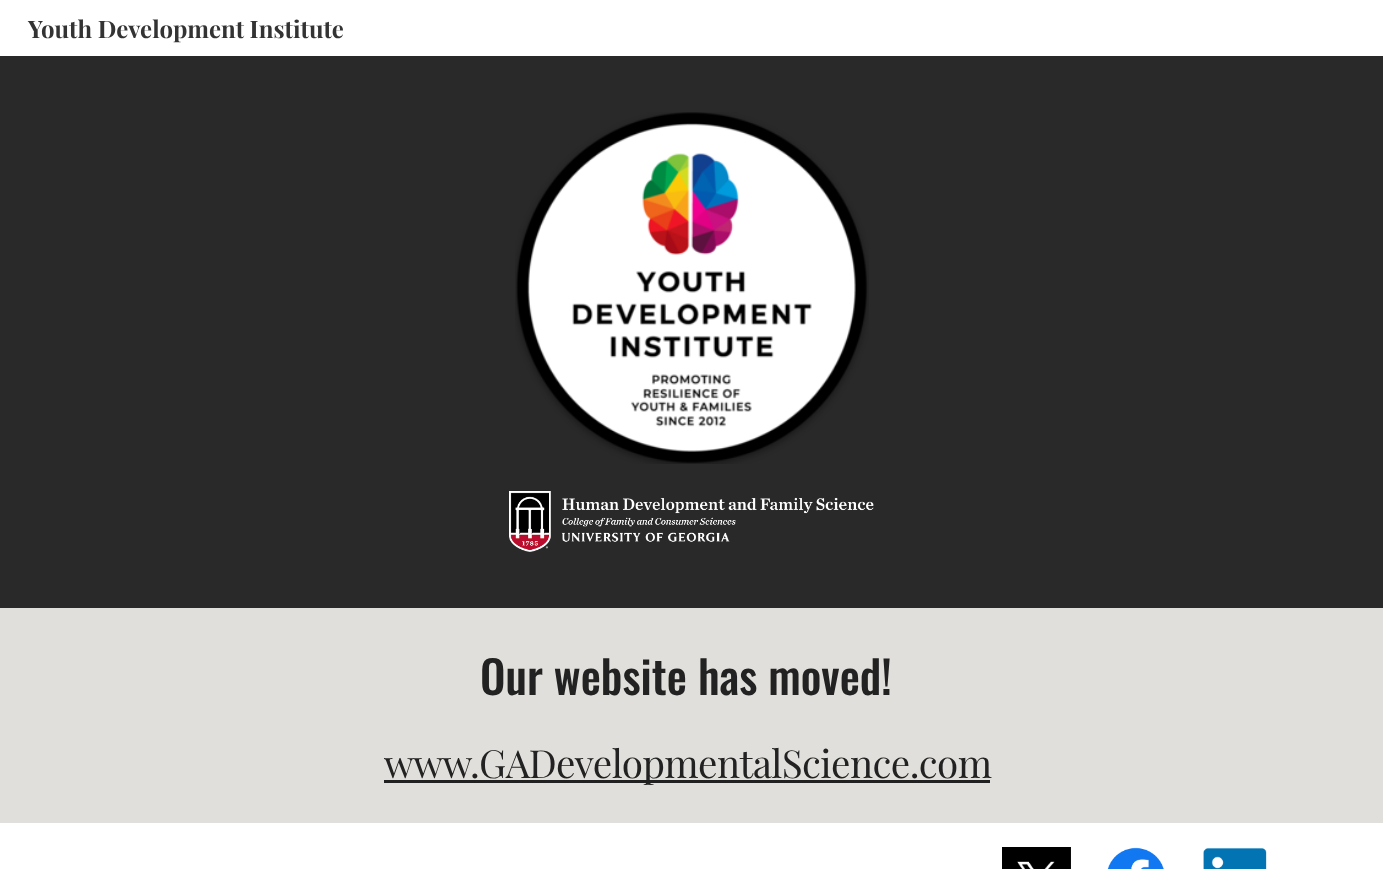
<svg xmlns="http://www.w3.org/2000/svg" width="1383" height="869">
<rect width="100%" height="100%" fill="#fff"/>
<text x="28" y="38" style="font-family:Playfair Display;font-size:24px;font-weight:bold;fill:#333">Youth Development Institute</text>
<rect y="56" width="1383" height="552" fill="#29292a"/>
<image x="515" y="112" width="354" height="352" href="media/1.png"/>
<image x="509" y="491" width="365" height="61" href="media/2.png"/>
<rect y="608" width="1383" height="215" fill="#e1dfdb"/>
<text x="480" y="695" style="font-family:Oswald;font-size:45.25px;font-weight:500;fill:#222">Our website has moved!</text>
<rect x="384" y="780" width="606" height="3" fill="#212121"/>
<text x="384" y="778" style="font-family:Playfair Display;font-size:38.7px;letter-spacing:-0.6px;fill:#222">www.GADevelopmentalScience.com</text>
<image x="1002" y="847" width="69" height="22" href="media/3.png"/>
<image x="1107" y="847" width="57" height="22" href="media/4.png"/>
<image x="1203" y="847" width="64" height="22" href="media/5.png"/>
</svg>
